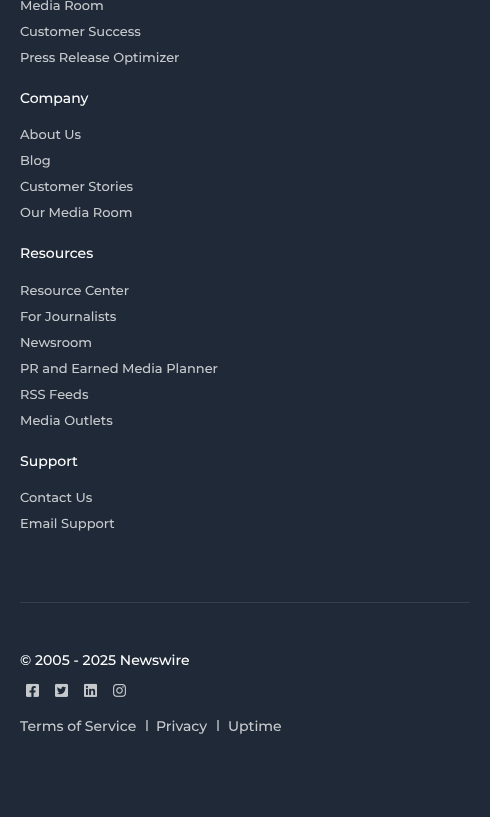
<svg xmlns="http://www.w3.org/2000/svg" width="490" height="817">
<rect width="100%" height="100%" fill="#1f2937"/>
<text x="20" y="10" style="font-family:Montserrat;font-size:13px;font-weight:500;fill:#c7cacd">Media Room</text>
<text x="20" y="36" style="font-family:Montserrat;font-size:13px;font-weight:500;fill:#c7cacd">Customer Success</text>
<text x="20" y="62" style="font-family:Montserrat;font-size:13px;font-weight:500;fill:#c7cacd">Press Release Optimizer</text>
<text x="20" y="103" style="font-family:Montserrat;font-size:14px;font-weight:500;fill:#fff">Company</text>
<text x="20" y="139" style="font-family:Montserrat;font-size:13px;font-weight:500;fill:#c7cacd">About Us</text>
<text x="20" y="165" style="font-family:Montserrat;font-size:13px;font-weight:500;fill:#c7cacd">Blog</text>
<text x="20" y="191" style="font-family:Montserrat;font-size:13px;font-weight:500;fill:#c7cacd">Customer Stories</text>
<text x="20" y="217" style="font-family:Montserrat;font-size:13px;font-weight:500;fill:#c7cacd">Our Media Room</text>
<text x="20" y="258" style="font-family:Montserrat;font-size:14px;font-weight:500;fill:#fff">Resources</text>
<text x="20" y="295" style="font-family:Montserrat;font-size:13px;font-weight:500;fill:#c7cacd">Resource Center</text>
<text x="20" y="321" style="font-family:Montserrat;font-size:13px;font-weight:500;fill:#c7cacd">For Journalists</text>
<text x="20" y="347" style="font-family:Montserrat;font-size:13px;font-weight:500;fill:#c7cacd">Newsroom</text>
<text x="20" y="373" style="font-family:Montserrat;font-size:13px;font-weight:500;fill:#c7cacd">PR and Earned Media Planner</text>
<text x="20" y="399" style="font-family:Montserrat;font-size:13px;font-weight:500;fill:#c7cacd">RSS Feeds</text>
<text x="20" y="425" style="font-family:Montserrat;font-size:13px;font-weight:500;fill:#c7cacd">Media Outlets</text>
<text x="20" y="466" style="font-family:Montserrat;font-size:14px;font-weight:500;fill:#fff">Support</text>
<text x="20" y="502" style="font-family:Montserrat;font-size:13px;font-weight:500;fill:#c7cacd">Contact Us</text>
<text x="20" y="528" style="font-family:Montserrat;font-size:13px;font-weight:500;fill:#c7cacd">Email Support</text>
<rect x="20" y="602" width="450" height="1" fill="#353e4b"/>
<text x="20" y="665" style="font-family:Montserrat;font-size:14px;font-weight:500;fill:#fff">© 2005 - 2025 Newswire</text>
<image x="26" y="683" width="13" height="14" href="media/1.png"/>
<image x="55" y="683" width="13" height="14" href="media/2.png"/>
<image x="84" y="683" width="13" height="14" href="media/3.png"/>
<image x="113" y="684" width="13" height="13" href="media/4.png"/>
<text x="20" y="731" style="font-family:Montserrat;font-size:14px;font-weight:500;fill:#c7cacd">Terms of Service</text>
<rect x="146" y="720" width="2" height="11" fill="#8f949b"/>
<text x="156" y="731" style="font-family:Montserrat;font-size:14px;font-weight:500;fill:#c7cacd">Privacy</text>
<rect x="217" y="720" width="2" height="11" fill="#8f949b"/>
<text x="228" y="731" style="font-family:Montserrat;font-size:14px;font-weight:500;fill:#c7cacd">Uptime</text>
</svg>
